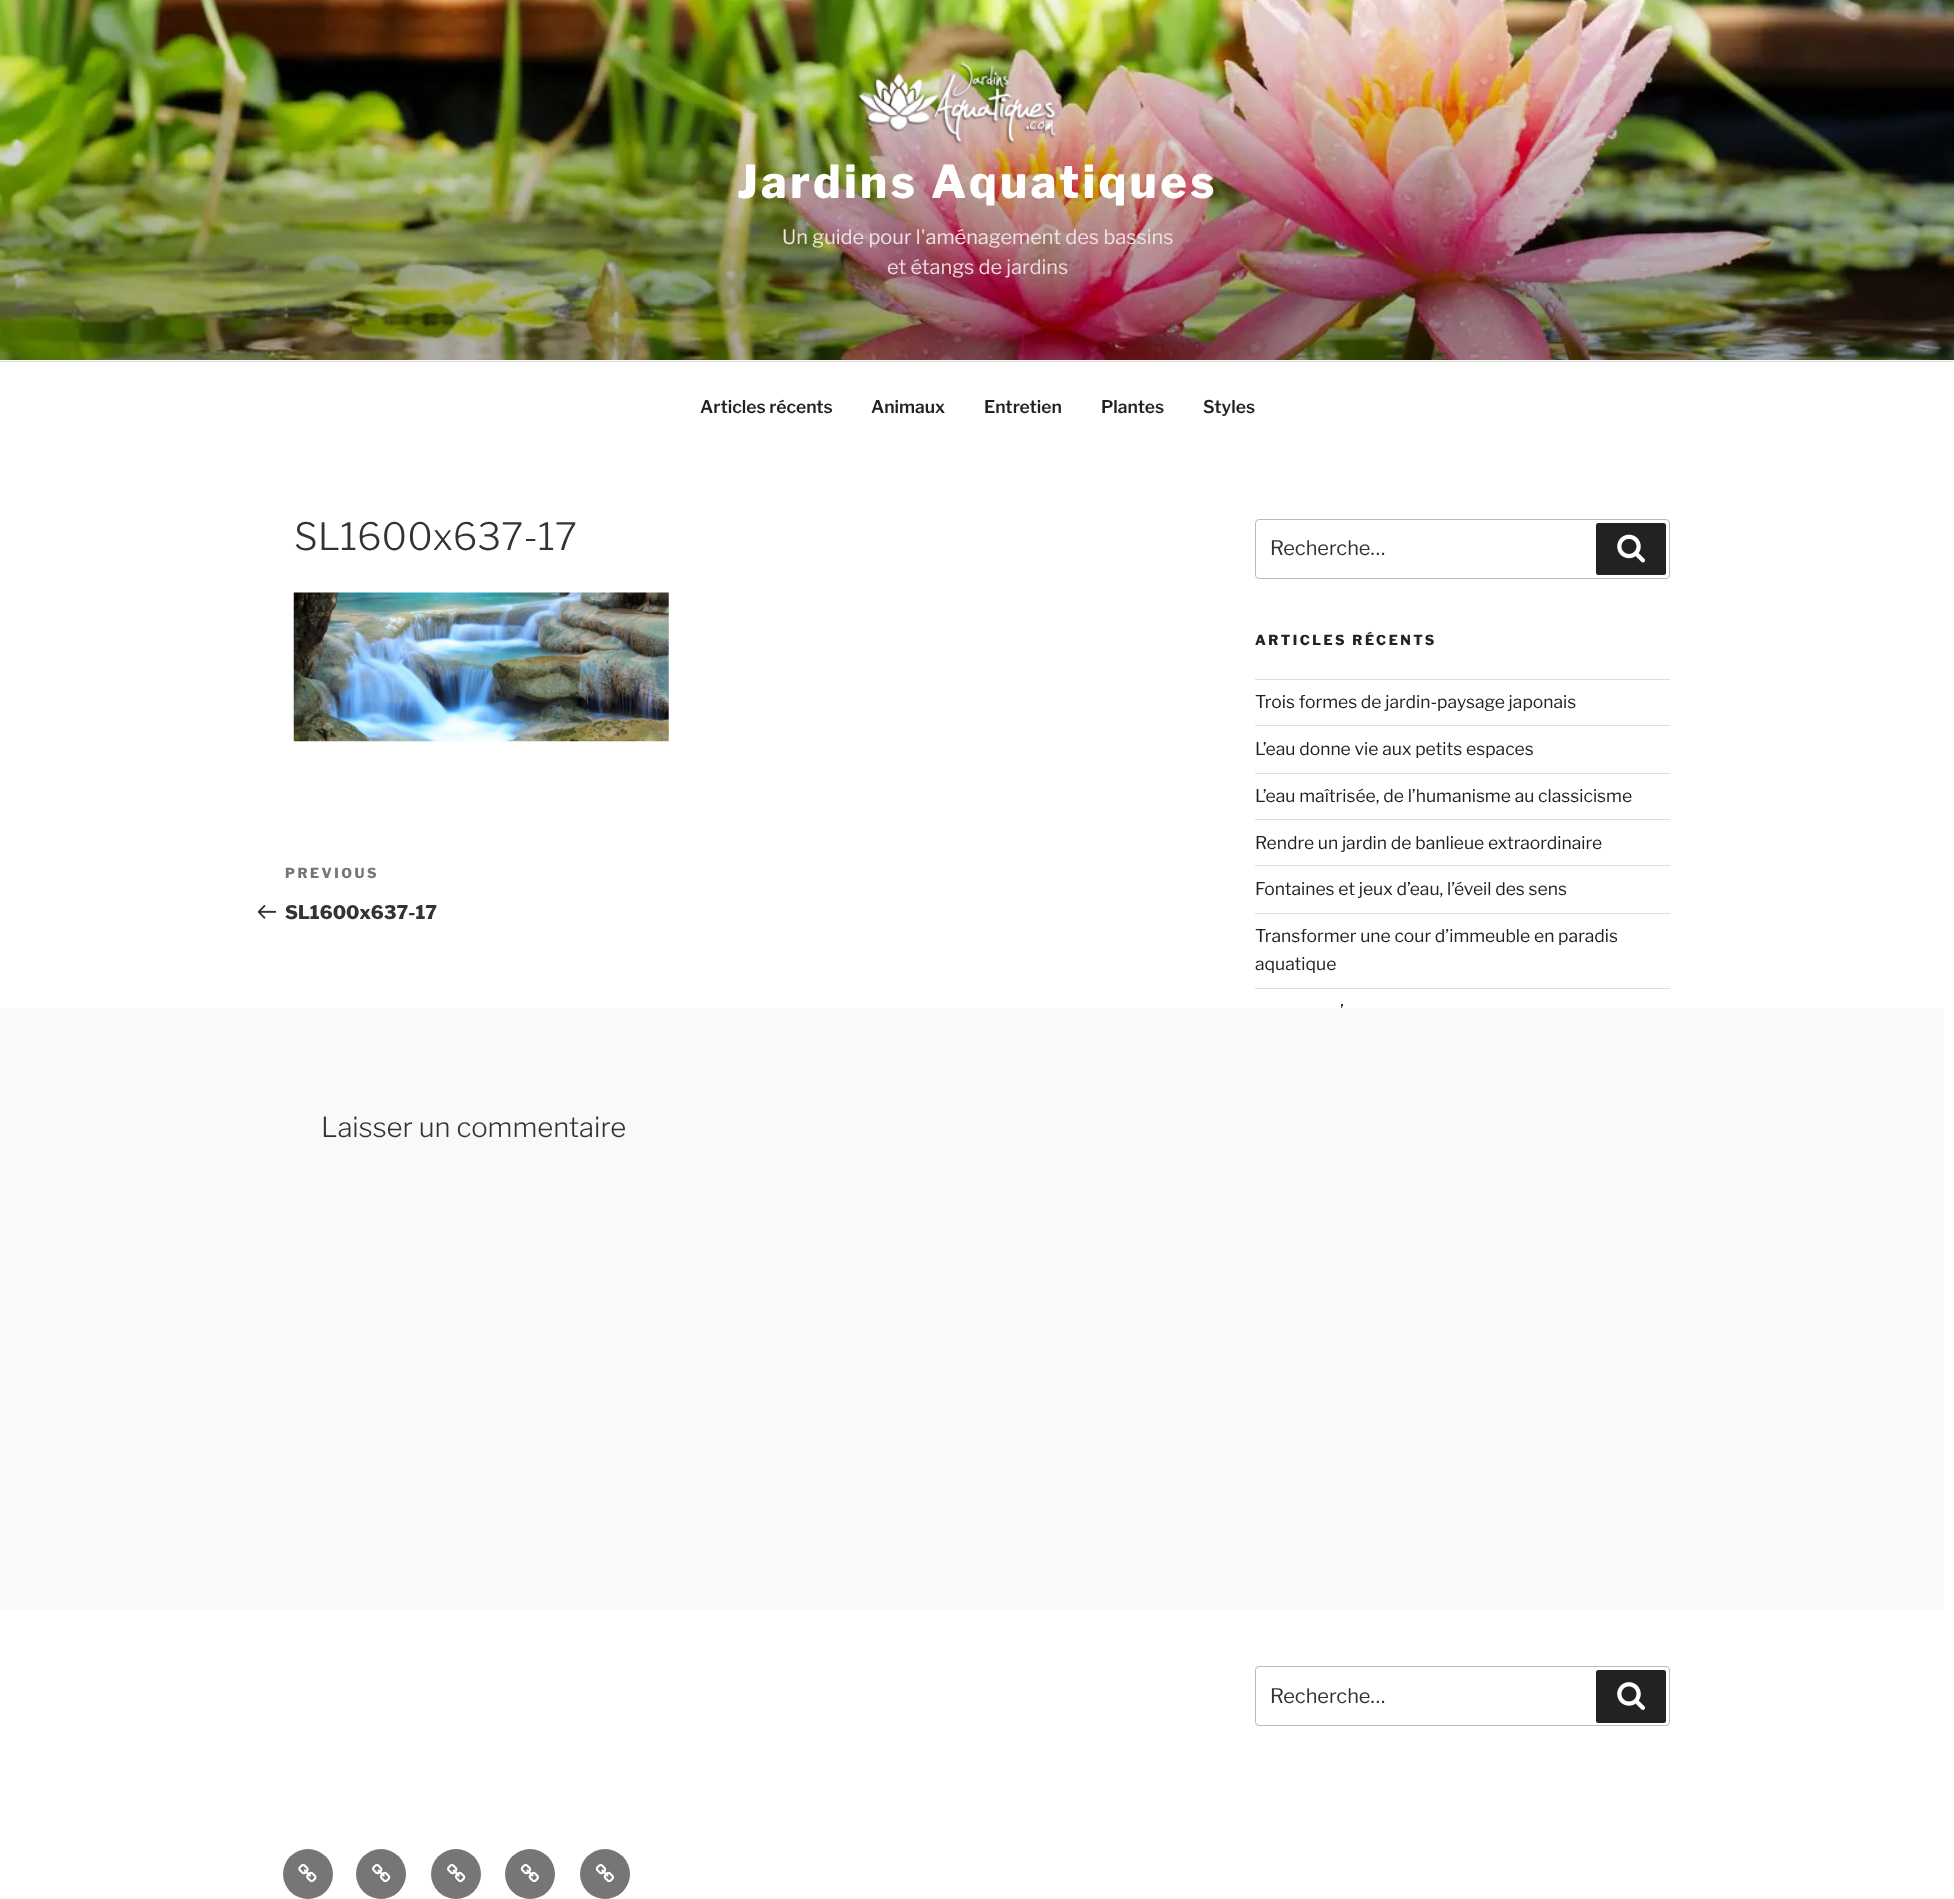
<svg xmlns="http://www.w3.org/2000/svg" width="1954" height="1899">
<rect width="100%" height="100%" fill="#fff"/>
<rect y="360" width="1954" height="1" fill="#f9f9f9"/>
<image x="0" y="0" width="1954" height="360" href="media/1.png"/>
<image x="857" y="62" width="200" height="82" href="media/2.png"/>
<text x="737" y="198" style="font-family:Libre Franklin;font-size:45px;font-weight:800;letter-spacing:3.6px;fill:#fff">Jardins Aquatiques</text>
<text x="782" y="244" style="font-family:Libre Franklin;font-size:20px;fill:#ede3e3">Un guide pour l'aménagement des bassins</text>
<text x="887" y="274" style="font-family:Libre Franklin;font-size:20px;fill:#ebdade">et étangs de jardins</text>
<rect y="361" width="1954" height="1" fill="#ddd"/>
<text x="700" y="413" style="font-family:Libre Franklin;font-size:17.5px;font-weight:600;fill:#222">Articles récents</text>
<text x="871" y="413" style="font-family:Libre Franklin;font-size:17.5px;font-weight:600;fill:#222">Animaux</text>
<text x="984" y="413" style="font-family:Libre Franklin;font-size:17.5px;font-weight:600;fill:#222">Entretien</text>
<text x="1101" y="413" style="font-family:Libre Franklin;font-size:17.5px;font-weight:600;fill:#222">Plantes</text>
<text x="1203" y="413" style="font-family:Libre Franklin;font-size:17.5px;font-weight:600;fill:#222">Styles</text>
<text x="294" y="550" style="font-family:Libre Franklin;font-size:37.5px;font-weight:300;fill:#333">SL1600x637-17</text>
<image x="293" y="592" width="376" height="150" href="media/3.png"/>
<text x="285" y="878" style="font-family:Libre Franklin;font-size:13.75px;font-weight:800;letter-spacing:2.5px;fill:#767676">PREVIOUS</text>
<image x="258" y="905" width="18" height="14" href="media/4.png"/>
<text x="285" y="919" style="font-family:Libre Franklin;font-size:18.75px;font-weight:800;fill:#333">SL1600x637-17</text>
<text x="1340" y="1017" style="font-family:Libre Franklin;font-size:17.5px;fill:#222">’</text>
<rect y="1008" width="1944" height="602" fill="#f9f9f9"/>
<text x="321" y="1137" style="font-family:Libre Franklin;font-size:27.5px;font-weight:300;fill:#333">Laisser un commentaire</text>
<rect x="1255.5" y="519.5" width="414" height="59" rx="3.5" fill="none" stroke="#bbb"/>
<text x="1270" y="555" style="font-family:Libre Franklin;font-size:20px;fill:#333">Recherche…</text>
<rect x="1596" y="523" width="70" height="52" rx="2.5" fill="#222"/>
<image x="1617" y="534" width="28" height="29" href="media/5.png"/>
<text x="1255" y="645" style="font-family:Libre Franklin;font-size:13.75px;font-weight:800;letter-spacing:2.5px;fill:#222">ARTICLES RÉCENTS</text>
<rect x="1255" y="679" width="415" height="1" fill="#ddd"/>
<rect x="1255" y="725" width="415" height="1" fill="#ddd"/>
<text x="1255" y="708" style="font-family:Libre Franklin;font-size:17.5px;fill:#222">Trois formes de jardin-paysage japonais</text>
<rect x="1255" y="773" width="415" height="1" fill="#ddd"/>
<text x="1255" y="755" style="font-family:Libre Franklin;font-size:17.5px;fill:#222">L’eau donne vie aux petits espaces</text>
<rect x="1255" y="819" width="415" height="1" fill="#ddd"/>
<text x="1255" y="802" style="font-family:Libre Franklin;font-size:17.5px;fill:#222">L’eau maîtrisée, de l’humanisme au classicisme</text>
<rect x="1255" y="865" width="415" height="1" fill="#ddd"/>
<text x="1255" y="849" style="font-family:Libre Franklin;font-size:17.5px;fill:#222">Rendre un jardin de banlieue extraordinaire</text>
<rect x="1255" y="913" width="415" height="1" fill="#ddd"/>
<text x="1255" y="895" style="font-family:Libre Franklin;font-size:17.5px;fill:#222">Fontaines et jeux d’eau, l’éveil des sens</text>
<rect x="1255" y="988" width="415" height="1" fill="#ddd"/>
<text x="1255" y="942" style="font-family:Libre Franklin;font-size:17.5px;fill:#222">Transformer une cour d’immeuble en paradis</text>
<text x="1255" y="970" style="font-family:Libre Franklin;font-size:17.5px;fill:#222">aquatique</text>
<rect x="1255.5" y="1666.5" width="414" height="59" rx="3.5" fill="none" stroke="#bbb"/>
<text x="1270" y="1703" style="font-family:Libre Franklin;font-size:20px;fill:#333">Recherche…</text>
<rect x="1596" y="1670" width="70" height="53" rx="2.5" fill="#222"/>
<image x="1617" y="1682" width="28" height="28" href="media/6.png"/>
<circle cx="308" cy="1874" r="25" fill="#767676"/>
<image x="298" y="1864" width="19" height="19" href="media/7.png"/>
<circle cx="381" cy="1874" r="25" fill="#767676"/>
<image x="372" y="1864" width="19" height="19" href="media/8.png"/>
<circle cx="456" cy="1874" r="25" fill="#767676"/>
<image x="447" y="1864" width="19" height="19" href="media/8.png"/>
<circle cx="530" cy="1874" r="25" fill="#767676"/>
<image x="520" y="1864" width="19" height="19" href="media/9.png"/>
<circle cx="605" cy="1874" r="25" fill="#767676"/>
<image x="595" y="1864" width="19" height="19" href="media/9.png"/>
</svg>
